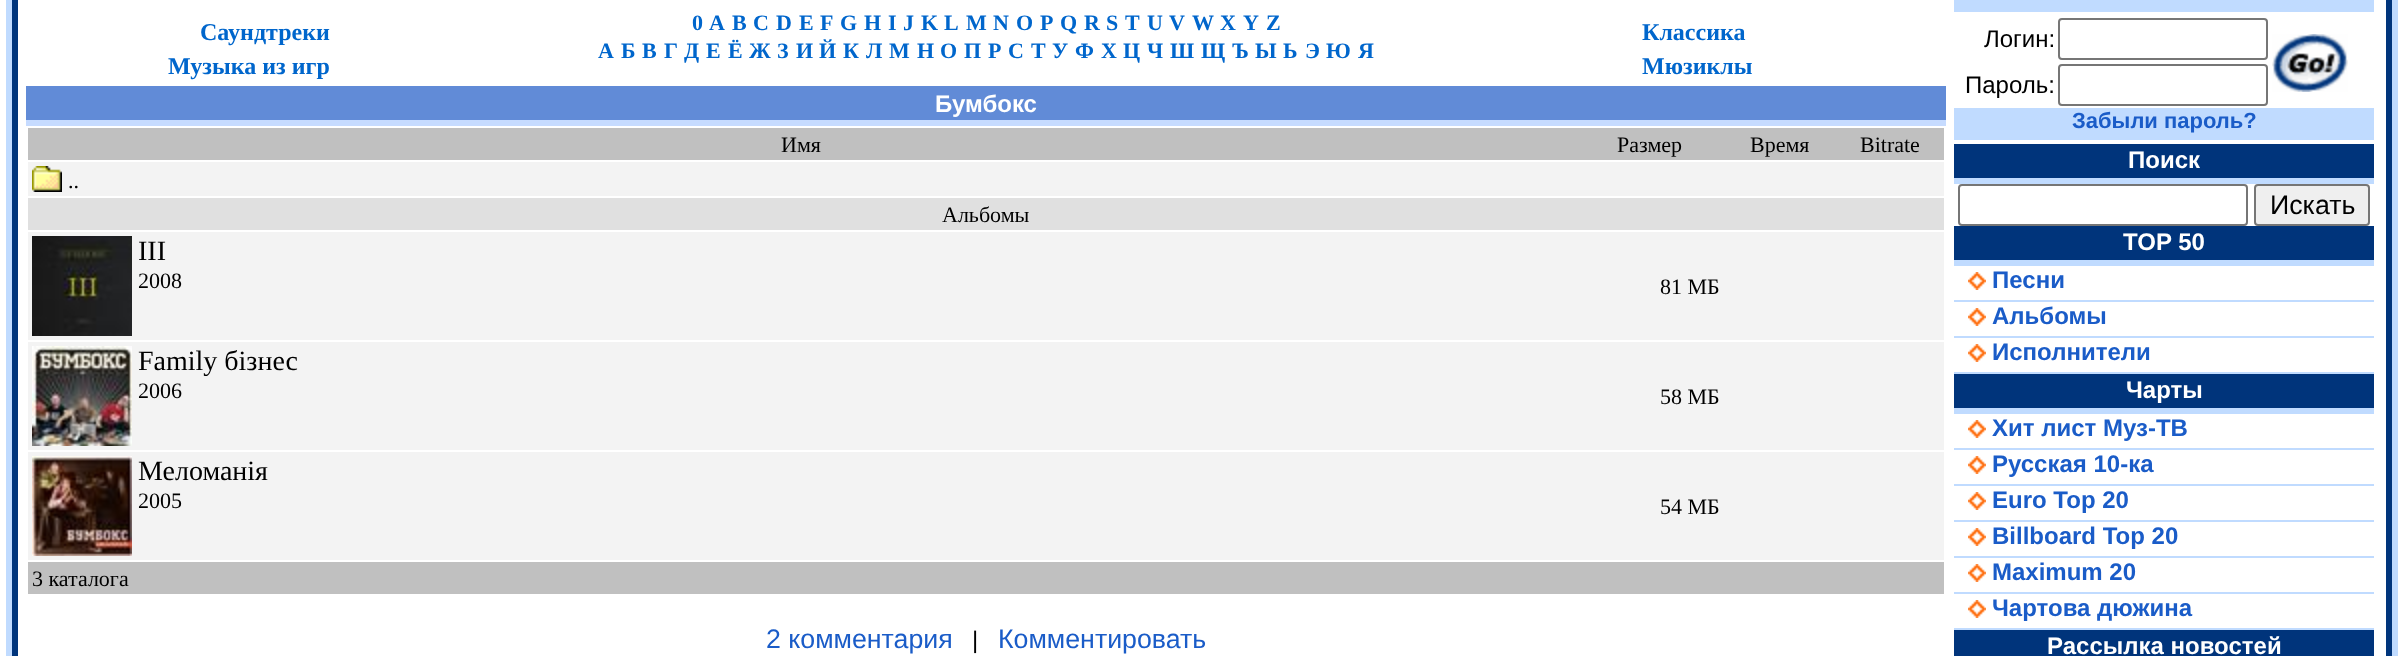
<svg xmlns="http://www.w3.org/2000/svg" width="2403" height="656">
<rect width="100%" height="100%" fill="#fff"/>
<rect x="6" width="6" height="656" fill="#c0dbff"/>
<rect x="12" width="6" height="656" fill="#00357c"/>
<text x="692" y="30" style="font-family:Liberation Serif;font-size:22px;font-weight:bold;fill:#06c">0</text>
<text x="709" y="30" style="font-family:Liberation Serif;font-size:22px;font-weight:bold;fill:#06c">A</text>
<text x="732" y="30" style="font-family:Liberation Serif;font-size:22px;font-weight:bold;fill:#06c">B</text>
<text x="753" y="30" style="font-family:Liberation Serif;font-size:22px;font-weight:bold;fill:#06c">C</text>
<text x="776" y="30" style="font-family:Liberation Serif;font-size:22px;font-weight:bold;fill:#06c">D</text>
<text x="799" y="30" style="font-family:Liberation Serif;font-size:22px;font-weight:bold;fill:#06c">E</text>
<text x="820" y="30" style="font-family:Liberation Serif;font-size:22px;font-weight:bold;fill:#06c">F</text>
<text x="840" y="30" style="font-family:Liberation Serif;font-size:22px;font-weight:bold;fill:#06c">G</text>
<text x="864" y="30" style="font-family:Liberation Serif;font-size:22px;font-weight:bold;fill:#06c">H</text>
<text x="888" y="30" style="font-family:Liberation Serif;font-size:22px;font-weight:bold;fill:#06c">I</text>
<text x="903" y="30" style="font-family:Liberation Serif;font-size:22px;font-weight:bold;fill:#06c">J</text>
<text x="921" y="30" style="font-family:Liberation Serif;font-size:22px;font-weight:bold;fill:#06c">K</text>
<text x="944" y="30" style="font-family:Liberation Serif;font-size:22px;font-weight:bold;fill:#06c">L</text>
<text x="966" y="30" style="font-family:Liberation Serif;font-size:22px;font-weight:bold;fill:#06c">M</text>
<text x="993" y="30" style="font-family:Liberation Serif;font-size:22px;font-weight:bold;fill:#06c">N</text>
<text x="1016" y="30" style="font-family:Liberation Serif;font-size:22px;font-weight:bold;fill:#06c">O</text>
<text x="1040" y="30" style="font-family:Liberation Serif;font-size:22px;font-weight:bold;fill:#06c">P</text>
<text x="1060" y="30" style="font-family:Liberation Serif;font-size:22px;font-weight:bold;fill:#06c">Q</text>
<text x="1084" y="30" style="font-family:Liberation Serif;font-size:22px;font-weight:bold;fill:#06c">R</text>
<text x="1106" y="30" style="font-family:Liberation Serif;font-size:22px;font-weight:bold;fill:#06c">S</text>
<text x="1125" y="30" style="font-family:Liberation Serif;font-size:22px;font-weight:bold;fill:#06c">T</text>
<text x="1147" y="30" style="font-family:Liberation Serif;font-size:22px;font-weight:bold;fill:#06c">U</text>
<text x="1169" y="30" style="font-family:Liberation Serif;font-size:22px;font-weight:bold;fill:#06c">V</text>
<text x="1192" y="30" style="font-family:Liberation Serif;font-size:22px;font-weight:bold;fill:#06c">W</text>
<text x="1220" y="30" style="font-family:Liberation Serif;font-size:22px;font-weight:bold;fill:#06c">X</text>
<text x="1243" y="30" style="font-family:Liberation Serif;font-size:22px;font-weight:bold;fill:#06c">Y</text>
<text x="1266" y="30" style="font-family:Liberation Serif;font-size:22px;font-weight:bold;fill:#06c">Z</text>
<text x="598" y="58" style="font-family:Liberation Serif;font-size:22px;font-weight:bold;fill:#06c">А</text>
<text x="621" y="58" style="font-family:Liberation Serif;font-size:22px;font-weight:bold;fill:#06c">Б</text>
<text x="642" y="58" style="font-family:Liberation Serif;font-size:22px;font-weight:bold;fill:#06c">В</text>
<text x="664" y="58" style="font-family:Liberation Serif;font-size:22px;font-weight:bold;fill:#06c">Г</text>
<text x="684" y="58" style="font-family:Liberation Serif;font-size:22px;font-weight:bold;fill:#06c">Д</text>
<text x="706" y="58" style="font-family:Liberation Serif;font-size:22px;font-weight:bold;fill:#06c">Е</text>
<text x="728" y="58" style="font-family:Liberation Serif;font-size:22px;font-weight:bold;fill:#06c">Ё</text>
<text x="749" y="58" style="font-family:Liberation Serif;font-size:22px;font-weight:bold;fill:#06c">Ж</text>
<text x="777" y="58" style="font-family:Liberation Serif;font-size:22px;font-weight:bold;fill:#06c">З</text>
<text x="796" y="58" style="font-family:Liberation Serif;font-size:22px;font-weight:bold;fill:#06c">И</text>
<text x="819" y="58" style="font-family:Liberation Serif;font-size:22px;font-weight:bold;fill:#06c">Й</text>
<text x="843" y="58" style="font-family:Liberation Serif;font-size:22px;font-weight:bold;fill:#06c">К</text>
<text x="866" y="58" style="font-family:Liberation Serif;font-size:22px;font-weight:bold;fill:#06c">Л</text>
<text x="889" y="58" style="font-family:Liberation Serif;font-size:22px;font-weight:bold;fill:#06c">М</text>
<text x="917" y="58" style="font-family:Liberation Serif;font-size:22px;font-weight:bold;fill:#06c">Н</text>
<text x="940" y="58" style="font-family:Liberation Serif;font-size:22px;font-weight:bold;fill:#06c">О</text>
<text x="964" y="58" style="font-family:Liberation Serif;font-size:22px;font-weight:bold;fill:#06c">П</text>
<text x="988" y="58" style="font-family:Liberation Serif;font-size:22px;font-weight:bold;fill:#06c">Р</text>
<text x="1008" y="58" style="font-family:Liberation Serif;font-size:22px;font-weight:bold;fill:#06c">С</text>
<text x="1031" y="58" style="font-family:Liberation Serif;font-size:22px;font-weight:bold;fill:#06c">Т</text>
<text x="1052" y="58" style="font-family:Liberation Serif;font-size:22px;font-weight:bold;fill:#06c">У</text>
<text x="1075" y="58" style="font-family:Liberation Serif;font-size:22px;font-weight:bold;fill:#06c">Ф</text>
<text x="1101" y="58" style="font-family:Liberation Serif;font-size:22px;font-weight:bold;fill:#06c">Х</text>
<text x="1123" y="58" style="font-family:Liberation Serif;font-size:22px;font-weight:bold;fill:#06c">Ц</text>
<text x="1147" y="58" style="font-family:Liberation Serif;font-size:22px;font-weight:bold;fill:#06c">Ч</text>
<text x="1170" y="58" style="font-family:Liberation Serif;font-size:22px;font-weight:bold;fill:#06c">Ш</text>
<text x="1201" y="58" style="font-family:Liberation Serif;font-size:22px;font-weight:bold;fill:#06c">Щ</text>
<text x="1232" y="58" style="font-family:Liberation Serif;font-size:22px;font-weight:bold;fill:#06c">Ъ</text>
<text x="1255" y="58" style="font-family:Liberation Serif;font-size:22px;font-weight:bold;fill:#06c">Ы</text>
<text x="1283" y="58" style="font-family:Liberation Serif;font-size:22px;font-weight:bold;fill:#06c">Ь</text>
<text x="1305" y="58" style="font-family:Liberation Serif;font-size:22px;font-weight:bold;fill:#06c">Э</text>
<text x="1326" y="58" style="font-family:Liberation Serif;font-size:22px;font-weight:bold;fill:#06c">Ю</text>
<text x="1358" y="58" style="font-family:Liberation Serif;font-size:22px;font-weight:bold;fill:#06c">Я</text>
<text x="200" y="40" style="font-family:Liberation Serif;font-size:24px;font-weight:bold;fill:#06c">Саундтреки</text>
<text x="1642" y="40" style="font-family:Liberation Serif;font-size:24px;font-weight:bold;fill:#06c">Классика</text>
<text x="168" y="74" style="font-family:Liberation Serif;font-size:24px;font-weight:bold;fill:#06c">Музыка из игр</text>
<text x="1642" y="74" style="font-family:Liberation Serif;font-size:24px;font-weight:bold;fill:#06c">Мюзиклы</text>
<rect x="26" y="86" width="1920" height="34" fill="#618bd7"/>
<rect x="26" y="120" width="1920" height="6" fill="#c6dbff"/>
<text x="935" y="112" style="font-family:Liberation Sans;font-size:24px;font-weight:bold;fill:#fff">Бумбокс</text>
<rect x="28" y="128" width="1916" height="32" fill="#c0c0c0"/>
<text x="781" y="152" style="font-family:Liberation Serif;font-size:22px;fill:#000">Имя</text>
<text x="1617" y="152" style="font-family:Liberation Serif;font-size:22px;fill:#000">Размер</text>
<text x="1750" y="152" style="font-family:Liberation Serif;font-size:22px;fill:#000">Время</text>
<text x="1860" y="152" style="font-family:Liberation Serif;font-size:22px;fill:#000">Bitrate</text>
<rect x="28" y="162" width="1916" height="34" fill="#f3f3f3"/>
<image x="32" y="166" width="30" height="26" href="media/1.png"/>
<text x="68" y="188" style="font-family:Liberation Serif;font-size:22px;fill:#000">..</text>
<rect x="28" y="198" width="1916" height="32" fill="#e0e0e0"/>
<text x="942" y="222" style="font-family:Liberation Serif;font-size:22px;fill:#000">Альбомы</text>
<rect x="28" y="232" width="1916" height="108" fill="#f3f3f3"/>
<image x="32" y="236" width="100" height="100" href="media/2.png"/>
<text x="138" y="260" style="font-family:Liberation Serif;font-size:28px;fill:#000">III</text>
<text x="138" y="288" style="font-family:Liberation Serif;font-size:22px;fill:#000">2008</text>
<text x="1660" y="294" style="font-family:Liberation Serif;font-size:22px;fill:#000">81 МБ</text>
<rect x="28" y="342" width="1916" height="108" fill="#f3f3f3"/>
<image x="32" y="346" width="100" height="100" href="media/3.png"/>
<text x="138" y="370" style="font-family:Liberation Serif;font-size:28px;fill:#000">Family бiзнес</text>
<text x="138" y="398" style="font-family:Liberation Serif;font-size:22px;fill:#000">2006</text>
<text x="1660" y="404" style="font-family:Liberation Serif;font-size:22px;fill:#000">58 МБ</text>
<rect x="28" y="452" width="1916" height="108" fill="#f3f3f3"/>
<image x="32" y="456" width="100" height="100" href="media/4.png"/>
<text x="138" y="480" style="font-family:Liberation Serif;font-size:28px;fill:#000">Меломанія</text>
<text x="138" y="508" style="font-family:Liberation Serif;font-size:22px;fill:#000">2005</text>
<text x="1660" y="514" style="font-family:Liberation Serif;font-size:22px;fill:#000">54 МБ</text>
<rect x="28" y="562" width="1916" height="32" fill="#c0c0c0"/>
<text x="32" y="586" style="font-family:Liberation Serif;font-size:22px;fill:#000">3 каталога</text>
<text x="766" y="648" style="font-family:Liberation Sans;font-size:26.75px;fill:#1a5cc8">2 комментария</text>
<text x="972" y="648" style="font-family:Liberation Sans;font-size:24px;fill:#000">|</text>
<text x="998" y="648" style="font-family:Liberation Sans;font-size:26.75px;fill:#1a5cc8">Комментировать</text>
<rect x="1954" width="420" height="12" fill="#c0dbff"/>
<text x="1984" y="47" style="font-family:Liberation Sans;font-size:24px;fill:#000">Логин:</text>
<rect x="2059" y="19" width="208" height="40" rx="3" fill="none" stroke="#767676" stroke-width="2"/>
<image x="2272" y="34" width="76" height="58" href="media/5.png"/>
<text x="1965" y="93" style="font-family:Liberation Sans;font-size:24px;fill:#000">Пароль:</text>
<rect x="2059" y="65" width="208" height="40" rx="3" fill="none" stroke="#767676" stroke-width="2"/>
<rect x="1954" y="108" width="420" height="32" fill="#c0dbff"/>
<text x="2072" y="128" style="font-family:Liberation Sans;font-size:22px;font-weight:bold;fill:#1a5cc8">Забыли пароль?</text>
<rect x="1954" y="144" width="420" height="34" fill="#00347b"/>
<rect x="1954" y="178" width="420" height="6" fill="#c0dbff"/>
<text x="2128" y="168" style="font-family:Liberation Sans;font-size:24px;font-weight:bold;fill:#fff">Поиск</text>
<rect x="1959" y="185" width="288" height="40" rx="3" fill="none" stroke="#767676" stroke-width="2"/>
<rect x="2255" y="185" width="114" height="40" rx="3" fill="#efefef" stroke="#767676" stroke-width="2"/>
<text x="2270" y="214" style="font-family:Liberation Sans;font-size:26.75px;fill:#000">Искать</text>
<rect x="1954" y="226" width="420" height="34" fill="#00347b"/>
<rect x="1954" y="260" width="420" height="6" fill="#c0dbff"/>
<text x="2123" y="250" style="font-family:Liberation Sans;font-size:24px;font-weight:bold;fill:#fff">TOP 50</text>
<rect x="1954" y="300" width="420" height="2" fill="#c0dbff"/>
<image x="1968" y="272" width="18" height="18" href="media/6.png"/>
<text x="1992" y="288" style="font-family:Liberation Sans;font-size:24px;font-weight:bold;fill:#1a5cc8">Песни</text>
<rect x="1954" y="336" width="420" height="2" fill="#c0dbff"/>
<image x="1968" y="308" width="18" height="18" href="media/6.png"/>
<text x="1992" y="324" style="font-family:Liberation Sans;font-size:24px;font-weight:bold;fill:#1a5cc8">Альбомы</text>
<rect x="1954" y="372" width="420" height="2" fill="#c0dbff"/>
<image x="1968" y="344" width="18" height="18" href="media/6.png"/>
<text x="1992" y="360" style="font-family:Liberation Sans;font-size:24px;font-weight:bold;fill:#1a5cc8">Исполнители</text>
<rect x="1954" y="374" width="420" height="34" fill="#00347b"/>
<rect x="1954" y="408" width="420" height="6" fill="#c0dbff"/>
<text x="2126" y="398" style="font-family:Liberation Sans;font-size:24px;font-weight:bold;fill:#fff">Чарты</text>
<rect x="1954" y="448" width="420" height="2" fill="#c0dbff"/>
<image x="1968" y="420" width="18" height="18" href="media/6.png"/>
<text x="1992" y="436" style="font-family:Liberation Sans;font-size:24px;font-weight:bold;fill:#1a5cc8">Хит лист Муз-ТВ</text>
<rect x="1954" y="484" width="420" height="2" fill="#c0dbff"/>
<image x="1968" y="456" width="18" height="18" href="media/6.png"/>
<text x="1992" y="472" style="font-family:Liberation Sans;font-size:24px;font-weight:bold;fill:#1a5cc8">Русская 10-ка</text>
<rect x="1954" y="520" width="420" height="2" fill="#c0dbff"/>
<image x="1968" y="492" width="18" height="18" href="media/6.png"/>
<text x="1992" y="508" style="font-family:Liberation Sans;font-size:24px;font-weight:bold;fill:#1a5cc8">Euro Top 20</text>
<rect x="1954" y="556" width="420" height="2" fill="#c0dbff"/>
<image x="1968" y="528" width="18" height="18" href="media/6.png"/>
<text x="1992" y="544" style="font-family:Liberation Sans;font-size:24px;font-weight:bold;fill:#1a5cc8">Billboard Top 20</text>
<rect x="1954" y="592" width="420" height="2" fill="#c0dbff"/>
<image x="1968" y="564" width="18" height="18" href="media/6.png"/>
<text x="1992" y="580" style="font-family:Liberation Sans;font-size:24px;font-weight:bold;fill:#1a5cc8">Maximum 20</text>
<rect x="1954" y="628" width="420" height="2" fill="#c0dbff"/>
<image x="1968" y="600" width="18" height="18" href="media/6.png"/>
<text x="1992" y="616" style="font-family:Liberation Sans;font-size:24px;font-weight:bold;fill:#1a5cc8">Чартова дюжина</text>
<rect x="1954" y="630" width="420" height="26" fill="#00347b"/>
<text x="2047" y="654" style="font-family:Liberation Sans;font-size:24px;font-weight:bold;fill:#fff">Рассылка новостей</text>
<rect x="2386" width="6" height="656" fill="#00357c"/>
<rect x="2392" width="6" height="656" fill="#c0dbff"/>
</svg>
